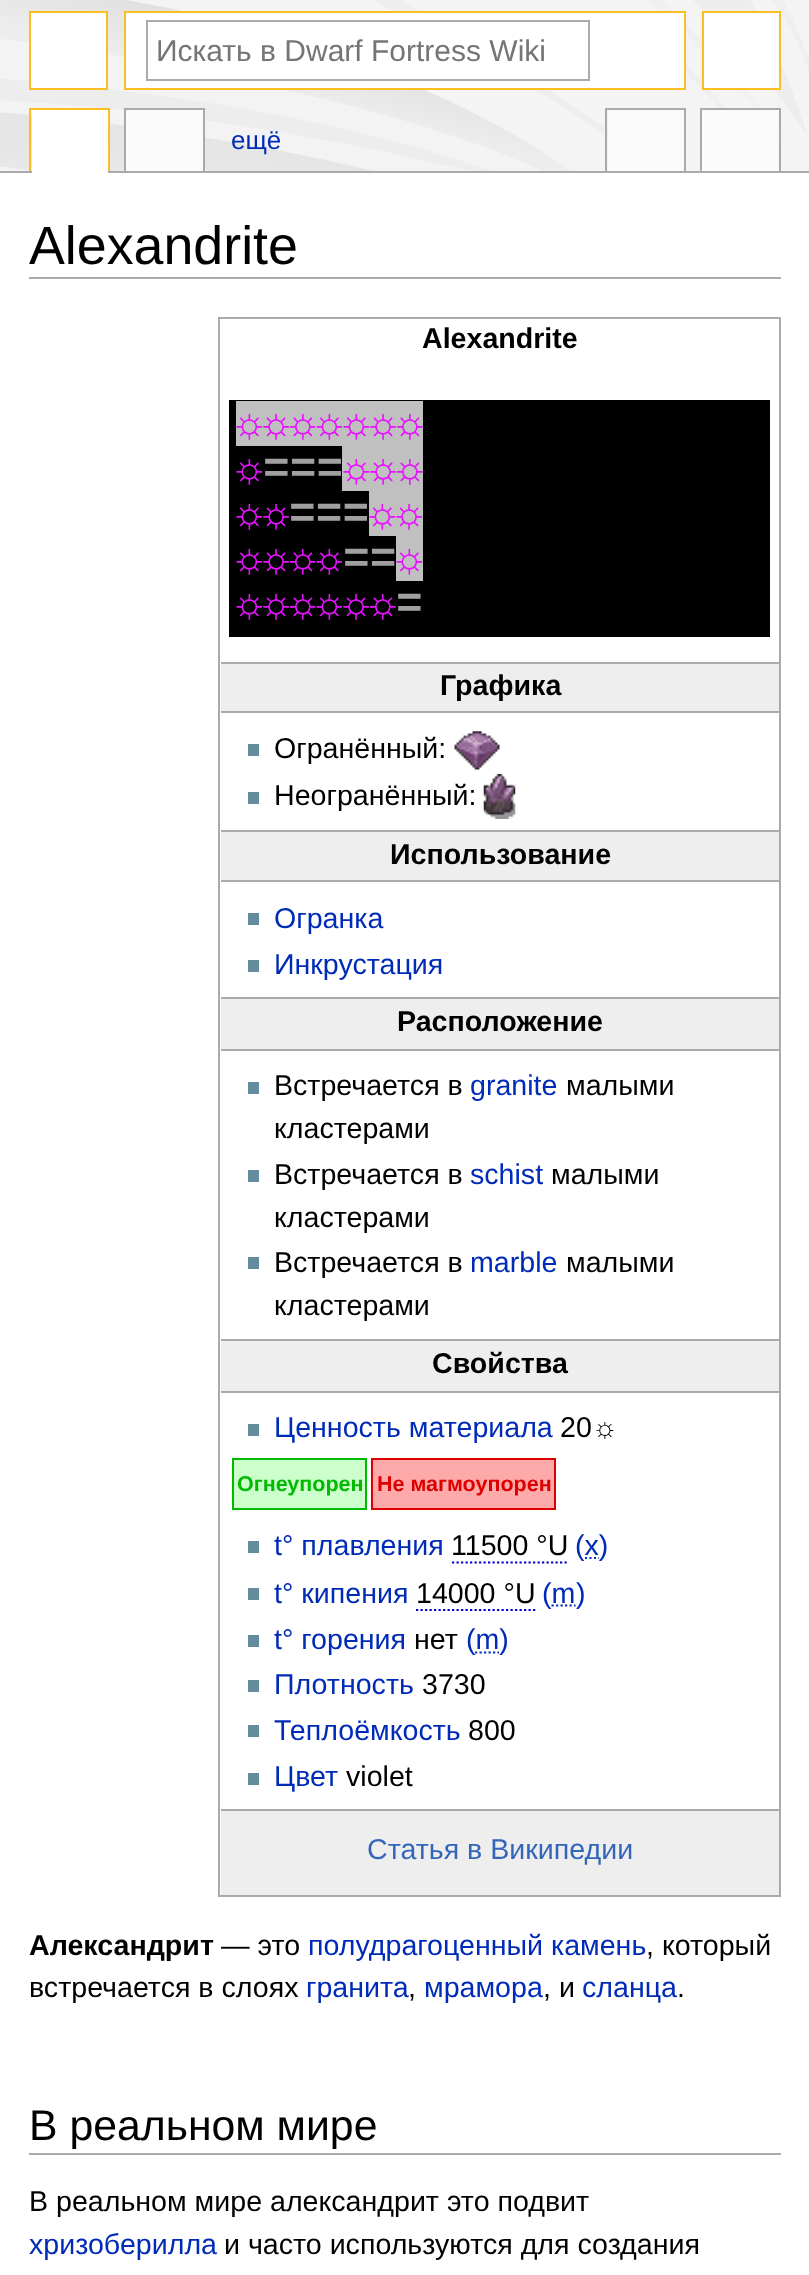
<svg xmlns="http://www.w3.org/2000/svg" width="809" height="2275">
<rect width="100%" height="100%" fill="#fff"/>
<image x="0" y="0" width="809" height="171" href="media/1.png"/>
<rect x="30" y="12" width="77" height="77" fill="#fff" stroke="#fabd23" stroke-width="2"/>
<rect x="125" y="12" width="560" height="77" fill="#fff" stroke="#fabd23" stroke-width="2"/>
<rect x="147" y="21" width="442" height="59" fill="none" stroke="#aaa" stroke-width="2"/>
<text x="156" y="61" style="font-family:Liberation Sans;font-size:30px;fill:#757575">Искать в Dwarf Fortress Wiki</text>
<rect x="703" y="12" width="77" height="77" fill="#fff" stroke="#fabd23" stroke-width="2"/>
<rect x="29" y="108" width="81" height="2" fill="#fabd23"/>
<rect x="108" y="108" width="2" height="65" fill="#fabd23"/>
<rect x="29" y="108" width="2" height="65" fill="#fabd23"/>
<rect x="124" y="108" width="81" height="2" fill="#aaa"/>
<rect x="203" y="108" width="2" height="65" fill="#aaa"/>
<rect x="124" y="108" width="2" height="65" fill="#aaa"/>
<rect x="605" y="108" width="81" height="2" fill="#aaa"/>
<rect x="684" y="108" width="2" height="65" fill="#aaa"/>
<rect x="605" y="108" width="2" height="65" fill="#aaa"/>
<rect x="700" y="108" width="81" height="2" fill="#aaa"/>
<rect x="779" y="108" width="2" height="65" fill="#aaa"/>
<rect x="700" y="108" width="2" height="65" fill="#aaa"/>
<rect y="171" width="809" height="2" fill="#aaa"/>
<rect x="32" y="110" width="76" height="63" fill="#fff"/>
<rect x="126" y="110" width="77" height="61" fill="#fbfbfb"/>
<text x="231" y="149" style="font-family:Liberation Sans;font-size:26px;fill:#002bb8">ещё</text>
<rect x="608" y="110" width="76" height="61" fill="#fbfbfb"/>
<rect x="702" y="110" width="77" height="61" fill="#fbfbfb"/>
<rect x="29" y="277" width="752" height="2" fill="#aaa"/>
<text x="29" y="264" style="font-family:Liberation Sans;font-size:53.75px;fill:#000">Alexandrite</text>
<rect x="219" y="318" width="561" height="1578" fill="none" stroke="#aaa" stroke-width="2"/>
<text x="422" y="348" style="font-family:Liberation Sans;font-size:28.6px;font-weight:bold;fill:#000">Alexandrite</text>
<rect x="229" y="400" width="541" height="237" fill="#000"/>
<rect x="236" y="401" width="79" height="45" fill="#c0c0c0"/>
<text x="236" y="437" style="font-family:Liberation Mono;font-size:44.5px;font-weight:bold;fill:#e811ff">☼☼☼</text>
<rect x="315" y="401" width="27" height="45" fill="#c0c0c0"/>
<text x="316" y="437" style="font-family:Liberation Mono;font-size:44.5px;font-weight:bold;fill:#e811ff">☼</text>
<rect x="342" y="401" width="81" height="45" fill="#c0c0c0"/>
<text x="343" y="437" style="font-family:Liberation Mono;font-size:44.5px;font-weight:bold;fill:#e811ff">☼☼☼</text>
<text x="236" y="482" style="font-family:Liberation Mono;font-size:44.5px;font-weight:bold;fill:#e811ff">☼</text>
<text x="263" y="482" style="font-family:Liberation Mono;font-size:44.5px;font-weight:bold;fill:#a0a0a0">===</text>
<rect x="342" y="446" width="81" height="45" fill="#c0c0c0"/>
<text x="343" y="482" style="font-family:Liberation Mono;font-size:44.5px;font-weight:bold;fill:#e811ff">☼☼☼</text>
<text x="236" y="527" style="font-family:Liberation Mono;font-size:44.5px;font-weight:bold;fill:#e811ff">☼☼</text>
<text x="289" y="527" style="font-family:Liberation Mono;font-size:44.5px;font-weight:bold;fill:#a0a0a0">===</text>
<rect x="369" y="491" width="54" height="45" fill="#c0c0c0"/>
<text x="369" y="527" style="font-family:Liberation Mono;font-size:44.5px;font-weight:bold;fill:#e811ff">☼☼</text>
<text x="236" y="572" style="font-family:Liberation Mono;font-size:44.5px;font-weight:bold;fill:#e811ff">☼☼☼☼</text>
<text x="343" y="572" style="font-family:Liberation Mono;font-size:44.5px;font-weight:bold;fill:#a0a0a0">==</text>
<rect x="342" y="561" width="1" height="2" fill="#000"/>
<rect x="396" y="536" width="27" height="45" fill="#c0c0c0"/>
<text x="396" y="572" style="font-family:Liberation Mono;font-size:44.5px;font-weight:bold;fill:#e811ff">☼</text>
<rect x="315" y="561" width="1" height="2" fill="#000"/>
<text x="236" y="617" style="font-family:Liberation Mono;font-size:44.5px;font-weight:bold;fill:#e811ff">☼☼☼☼☼☼</text>
<text x="396" y="617" style="font-family:Liberation Mono;font-size:44.5px;font-weight:bold;fill:#a0a0a0">=</text>
<rect x="315" y="606" width="1" height="2" fill="#000"/>
<rect x="342" y="606" width="1" height="2" fill="#000"/>
<rect x="221" y="664" width="558" height="47" fill="#eee"/>
<rect x="221" y="662" width="558" height="2" fill="#aaa"/>
<rect x="221" y="711" width="558" height="2" fill="#aaa"/>
<text x="440" y="695" style="font-family:Liberation Sans;font-size:28.6px;font-weight:bold;fill:#000">Графика</text>
<rect x="248" y="744" width="11" height="12" fill="#638c9c"/>
<text x="274" y="758" style="font-family:Liberation Sans;font-size:28.6px;fill:#000">Огранённый:</text>
<image x="454" y="731" width="46" height="39" href="media/2.png"/>
<rect x="248" y="792" width="11" height="12" fill="#638c9c"/>
<text x="274" y="805" style="font-family:Liberation Sans;font-size:28.6px;fill:#000">Неогранённый:</text>
<image x="483" y="774" width="33" height="45" href="media/3.png"/>
<rect x="221" y="832" width="558" height="48" fill="#eee"/>
<rect x="221" y="830" width="558" height="2" fill="#aaa"/>
<rect x="221" y="880" width="558" height="2" fill="#aaa"/>
<text x="390" y="864" style="font-family:Liberation Sans;font-size:28.6px;font-weight:bold;fill:#000">Использование</text>
<rect x="248" y="913" width="11" height="12" fill="#638c9c"/>
<text x="274" y="928" style="font-family:Liberation Sans;font-size:28.6px;fill:#002bb8">Огранка</text>
<rect x="248" y="960" width="11" height="12" fill="#638c9c"/>
<text x="274" y="974" style="font-family:Liberation Sans;font-size:28.6px;fill:#002bb8">Инкрустация</text>
<rect x="221" y="999" width="558" height="50" fill="#eee"/>
<rect x="221" y="997" width="558" height="2" fill="#aaa"/>
<rect x="221" y="1049" width="558" height="2" fill="#aaa"/>
<text x="397" y="1031" style="font-family:Liberation Sans;font-size:28.6px;font-weight:bold;fill:#000">Расположение</text>
<rect x="248" y="1082" width="11" height="12" fill="#638c9c"/>
<text x="274" y="1095" style="font-family:Liberation Sans;font-size:28.6px;fill:#000">Встречается в</text>
<text x="470" y="1095" style="font-family:Liberation Sans;font-size:28.6px;fill:#002bb8">granite</text>
<text x="566" y="1095" style="font-family:Liberation Sans;font-size:28.6px;fill:#000">малыми</text>
<text x="274" y="1138" style="font-family:Liberation Sans;font-size:28.6px;fill:#000">кластерами</text>
<rect x="248" y="1170" width="11" height="12" fill="#638c9c"/>
<text x="274" y="1184" style="font-family:Liberation Sans;font-size:28.6px;fill:#000">Встречается в</text>
<text x="470" y="1184" style="font-family:Liberation Sans;font-size:28.6px;fill:#002bb8">schist</text>
<text x="551" y="1184" style="font-family:Liberation Sans;font-size:28.6px;fill:#000">малыми</text>
<text x="274" y="1227" style="font-family:Liberation Sans;font-size:28.6px;fill:#000">кластерами</text>
<rect x="248" y="1257" width="11" height="12" fill="#638c9c"/>
<text x="274" y="1272" style="font-family:Liberation Sans;font-size:28.6px;fill:#000">Встречается в</text>
<text x="470" y="1272" style="font-family:Liberation Sans;font-size:28.6px;fill:#002bb8">marble</text>
<text x="566" y="1272" style="font-family:Liberation Sans;font-size:28.6px;fill:#000">малыми</text>
<text x="274" y="1315" style="font-family:Liberation Sans;font-size:28.6px;fill:#000">кластерами</text>
<rect x="221" y="1341" width="558" height="50" fill="#eee"/>
<rect x="221" y="1339" width="558" height="2" fill="#aaa"/>
<rect x="221" y="1391" width="558" height="2" fill="#aaa"/>
<text x="432" y="1373" style="font-family:Liberation Sans;font-size:28.6px;font-weight:bold;fill:#000">Свойства</text>
<rect x="248" y="1424" width="11" height="12" fill="#638c9c"/>
<text x="274" y="1437" style="font-family:Liberation Sans;font-size:28.6px;fill:#002bb8">Ценность материала</text>
<text x="560" y="1437" style="font-family:Liberation Sans;font-size:28.6px;fill:#000">20☼</text>
<rect x="233" y="1459" width="133" height="50" fill="#cfc" stroke="#0b0" stroke-width="2"/>
<text x="237" y="1491" style="font-family:Liberation Sans;font-size:21.5px;font-weight:bold;fill:#0b0">Огнеупорен</text>
<rect x="372" y="1459" width="183" height="50" fill="#faa" stroke="#d00" stroke-width="2"/>
<text x="377" y="1491" style="font-family:Liberation Sans;font-size:21.5px;font-weight:bold;fill:#d00">Не магмоупорен</text>
<rect x="248" y="1541" width="11" height="12" fill="#638c9c"/>
<text x="274" y="1555" style="font-family:Liberation Sans;font-size:28.6px;fill:#002bb8">t° плавления</text>
<text x="451" y="1555" style="font-family:Liberation Sans;font-size:28.6px;fill:#000">11500 °U</text>
<path d="M452 1562.5h117" fill="none" stroke="#00c" stroke-width="2.2" stroke-dasharray="2.25 2.25"/>
<text x="575" y="1555" style="font-family:Liberation Sans;font-size:28.6px;fill:#002bb8">(x)</text>
<path d="M585 1558h2m2.5 0h2m2.5 0h2m2.5 0h.5" fill="none" stroke="#002bb8" stroke-width="2.2"/>
<rect x="248" y="1588" width="11" height="12" fill="#638c9c"/>
<text x="274" y="1603" style="font-family:Liberation Sans;font-size:28.6px;fill:#002bb8">t° кипения</text>
<text x="416" y="1603" style="font-family:Liberation Sans;font-size:28.6px;fill:#000">14000 °U</text>
<path d="M416 1610h119.5" fill="none" stroke="#00c" stroke-width="2.2" stroke-dasharray="2.25 2.25"/>
<text x="542" y="1603" style="font-family:Liberation Sans;font-size:28.6px;fill:#002bb8">(m</text>
<path d="M551.5 1605.5h24" fill="none" stroke="#002bb8" stroke-width="2.2" stroke-dasharray="2.25 2.25"/>
<text x="576" y="1603" style="font-family:Liberation Sans;font-size:28.6px;fill:#002bb8">)</text>
<rect x="248" y="1635" width="11" height="12" fill="#638c9c"/>
<text x="274" y="1649" style="font-family:Liberation Sans;font-size:28.6px;fill:#002bb8">t° горения</text>
<text x="414" y="1649" style="font-family:Liberation Sans;font-size:28.6px;fill:#000">нет</text>
<text x="466" y="1649" style="font-family:Liberation Sans;font-size:28.6px;fill:#002bb8">(m)</text>
<path d="M475 1652.5h24" fill="none" stroke="#002bb8" stroke-width="2.2" stroke-dasharray="2.25 2.25"/>
<rect x="248" y="1680" width="11" height="12" fill="#638c9c"/>
<text x="274" y="1694" style="font-family:Liberation Sans;font-size:28.6px;fill:#002bb8">Плотность</text>
<text x="422" y="1694" style="font-family:Liberation Sans;font-size:28.6px;fill:#000">3730</text>
<rect x="248" y="1725" width="11" height="12" fill="#638c9c"/>
<text x="274" y="1740" style="font-family:Liberation Sans;font-size:28.6px;fill:#002bb8">Теплоёмкость</text>
<text x="468" y="1740" style="font-family:Liberation Sans;font-size:28.6px;fill:#000">800</text>
<rect x="248" y="1773" width="11" height="12" fill="#638c9c"/>
<text x="274" y="1786" style="font-family:Liberation Sans;font-size:28.6px;fill:#002bb8">Цвет</text>
<text x="346" y="1786" style="font-family:Liberation Sans;font-size:28.6px;fill:#000">violet</text>
<rect x="221" y="1811" width="558" height="84" fill="#eee"/>
<rect x="221" y="1809" width="558" height="2" fill="#aaa"/>
<text x="367" y="1859" style="font-family:Liberation Sans;font-size:28.6px;fill:#36b">Статья в Википедии</text>
<text x="29" y="1955" style="font-family:Liberation Sans;font-size:28.6px;font-weight:bold;fill:#000">Александрит</text>
<text x="221" y="1955" style="font-family:Liberation Sans;font-size:28.6px;fill:#000">— это</text>
<text x="308" y="1955" style="font-family:Liberation Sans;font-size:28.6px;fill:#002bb8">полудрагоценный камень</text>
<text x="646" y="1955" style="font-family:Liberation Sans;font-size:28.6px;fill:#000">, который</text>
<text x="29" y="1997" style="font-family:Liberation Sans;font-size:28.6px;fill:#000">встречается в слоях</text>
<text x="306" y="1997" style="font-family:Liberation Sans;font-size:28.6px;fill:#002bb8">гранита</text>
<text x="408" y="1997" style="font-family:Liberation Sans;font-size:28.6px;fill:#000">,</text>
<text x="424" y="1997" style="font-family:Liberation Sans;font-size:28.6px;fill:#002bb8">мрамора</text>
<text x="543" y="1997" style="font-family:Liberation Sans;font-size:28.6px;fill:#000">, и</text>
<text x="582" y="1997" style="font-family:Liberation Sans;font-size:28.6px;fill:#002bb8">сланца</text>
<text x="677" y="1997" style="font-family:Liberation Sans;font-size:28.6px;fill:#000">.</text>
<rect x="29" y="2153" width="752" height="2" fill="#aaa"/>
<text x="29" y="2140" style="font-family:Liberation Sans;font-size:42.75px;fill:#000">В реальном мире</text>
<text x="29" y="2211" style="font-family:Liberation Sans;font-size:28.6px;fill:#000">В реальном мире александрит это подвит</text>
<text x="29" y="2254" style="font-family:Liberation Sans;font-size:28.6px;fill:#002bb8">хризоберилла</text>
<text x="224" y="2254" style="font-family:Liberation Sans;font-size:28.6px;fill:#000">и часто используются для создания</text>
</svg>
